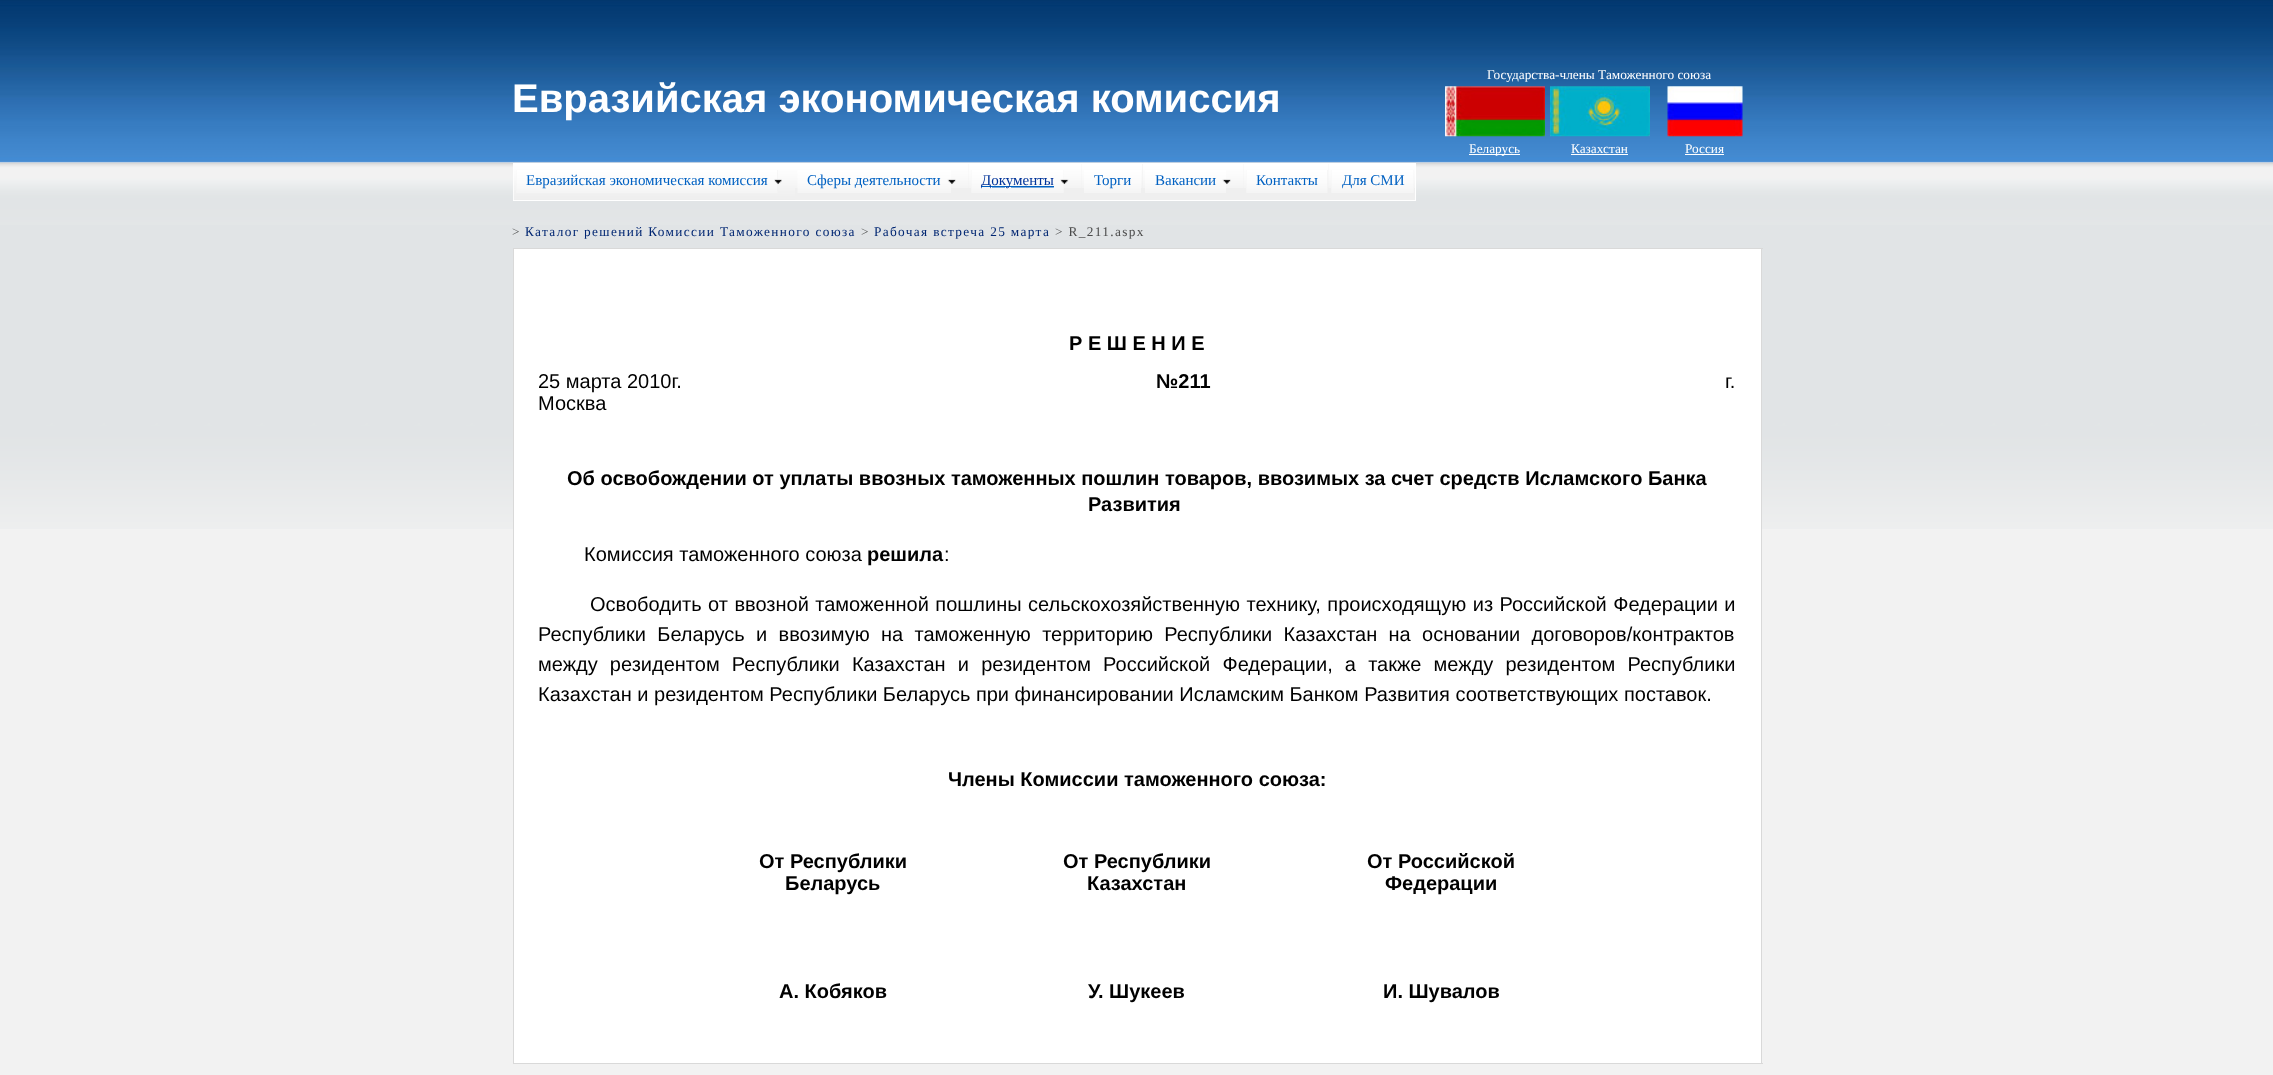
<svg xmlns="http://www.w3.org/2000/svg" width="2273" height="1075">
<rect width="100%" height="100%" fill="#fff"/>
<image x="0" y="0" width="2273" height="163" href="media/1.png"/>
<text x="512" y="112" style="font-family:Liberation Sans;font-size:40px;font-weight:bold;fill:#fff">Евразийская экономическая комиссия</text>
<text x="1487" y="79" style="font-family:Liberation Serif;font-size:13.3px;fill:#fff">Государства-члены Таможенного союза</text>
<image x="1445" y="86" width="100" height="51" href="media/2.png"/>
<image x="1550" y="86" width="100" height="51" href="media/3.png"/>
<image x="1667" y="86" width="76" height="51" href="media/4.png"/>
<rect x="1469" y="154" width="51" height="1" fill="#fff"/>
<text x="1469" y="153" style="font-family:Liberation Serif;font-size:13.3px;fill:#fff">Беларусь</text>
<text x="1571" y="153" style="font-family:Liberation Serif;font-size:13.3px;fill:#fff">Казахстан</text>
<rect x="1571" y="154" width="57" height="1" fill="#fff"/>
<text x="1685" y="153" style="font-family:Liberation Serif;font-size:13.3px;fill:#fff">Россия</text>
<rect x="1685" y="154" width="39" height="1" fill="#fff"/>
<image x="0" y="162" width="2273" height="63" href="media/5.png"/>
<rect x="513.5" y="163.5" width="902" height="37" fill="none" stroke="#fff"/>
<image x="513" y="164" width="282" height="36" href="media/6.png"/>
<rect x="516" y="170" width="262" height="21" fill="#efefef"/>
<image x="516" y="170" width="262" height="23" href="media/7.png"/>
<text x="526" y="185" style="font-family:Liberation Serif;font-size:15px;fill:#0161c2">Евразийская экономическая комиссия</text>
<image x="774" y="179" width="8" height="6" href="media/8.png"/>
<rect x="795" y="164" width="174" height="36" fill="#efefef"/>
<image x="795" y="164" width="174" height="24" href="media/9.png"/>
<image x="797" y="170" width="154" height="23" href="media/10.png"/>
<text x="807" y="185" style="font-family:Liberation Serif;font-size:15px;fill:#0161c2">Сферы деятельности</text>
<image x="947" y="179" width="9" height="6" href="media/11.png"/>
<rect x="969" y="188" width="112" height="12" fill="#efefef"/>
<image x="969" y="164" width="112" height="24" href="media/12.png"/>
<rect x="971" y="170" width="93" height="18" fill="#efefef"/>
<image x="971" y="170" width="93" height="23" href="media/13.png"/>
<rect x="981" y="186" width="73" height="1" fill="#0161c2"/>
<text x="981" y="185" style="font-family:Liberation Serif;font-size:15px;fill:#039">Документы</text>
<image x="1060" y="179" width="9" height="6" href="media/14.png"/>
<rect x="1081" y="164" width="248" height="36" fill="#efefef"/>
<image x="1081" y="164" width="62" height="24" href="media/15.png"/>
<image x="1084" y="170" width="57" height="23" href="media/16.png"/>
<text x="1094" y="185" style="font-family:Liberation Serif;font-size:15px;fill:#0161c2">Торги</text>
<image x="1143" y="164" width="101" height="24" href="media/17.png"/>
<image x="1145" y="170" width="81" height="23" href="media/18.png"/>
<text x="1155" y="185" style="font-family:Liberation Serif;font-size:15px;fill:#0161c2">Вакансии</text>
<image x="1222" y="179" width="9" height="6" href="media/19.png"/>
<image x="1244" y="164" width="85" height="24" href="media/20.png"/>
<rect x="1246" y="170" width="82" height="18" fill="#efefef"/>
<image x="1246" y="170" width="82" height="23" href="media/21.png"/>
<text x="1256" y="185" style="font-family:Liberation Serif;font-size:15px;fill:#0161c2">Контакты</text>
<rect x="1329" y="188" width="86" height="12" fill="#efefef"/>
<image x="1329" y="164" width="86" height="24" href="media/22.png"/>
<rect x="1331" y="170" width="83" height="18" fill="#efefef"/>
<image x="1331" y="170" width="83" height="23" href="media/23.png"/>
<text x="1342" y="185" style="font-family:Liberation Serif;font-size:15px;fill:#0161c2">Для СМИ</text>
<rect y="529" width="2273" height="546" fill="#f2f2f2"/>
<image x="0" y="225" width="2273" height="304" href="media/24.png"/>
<text x="512" y="236" style="font-family:Liberation Serif;font-size:13.3px;letter-spacing:1.35px;fill:#4c4c4c">&gt;</text>
<text x="525" y="236" style="font-family:Liberation Serif;font-size:13.3px;letter-spacing:1.35px;fill:#002672">Каталог решений Комиссии Таможенного союза</text>
<text x="861" y="236" style="font-family:Liberation Serif;font-size:13.3px;letter-spacing:1.35px;fill:#4c4c4c">&gt;</text>
<text x="874" y="236" style="font-family:Liberation Serif;font-size:13.3px;letter-spacing:1.35px;fill:#002672">Рабочая встреча 25 марта</text>
<text x="1055" y="236" style="font-family:Liberation Serif;font-size:13.3px;letter-spacing:1.35px;fill:#4c4c4c">&gt; R_211.aspx</text>
<rect x="514" y="249" width="1247" height="814" fill="#fff"/>
<rect x="513" y="248" width="1250" height="1" fill="#d9d9d9"/>
<rect x="1761" y="248" width="1" height="816" fill="#d9d9d9"/>
<rect x="513" y="248" width="1" height="46" fill="#d9d9d9"/>
<rect x="513" y="1063" width="1250" height="1" fill="#d9d9d9"/>
<rect x="513" y="293" width="1" height="771" fill="#d9d9d9"/>
<text x="1069" y="350" style="font-family:Liberation Sans;font-size:20px;font-weight:bold;fill:#000">Р Е Ш Е Н И Е</text>
<text x="538" y="388" style="font-family:Liberation Sans;font-size:20px;fill:#000">25 марта 2010г.</text>
<text x="1156" y="388" style="font-family:Liberation Sans;font-size:20px;font-weight:bold;fill:#000">№211</text>
<text x="1725" y="388" style="font-family:Liberation Sans;font-size:20px;fill:#000">г.</text>
<text x="538" y="410" style="font-family:Liberation Sans;font-size:20px;fill:#000">Москва</text>
<text x="567" y="485" style="font-family:Liberation Sans;font-size:20px;font-weight:bold;fill:#000">Об освобождении от уплаты ввозных таможенных пошлин товаров, ввозимых за счет средств Исламского Банка</text>
<text x="1088" y="511" style="font-family:Liberation Sans;font-size:20px;font-weight:bold;fill:#000">Развития</text>
<text x="584" y="561" style="font-family:Liberation Sans;font-size:20px;fill:#000">Комиссия таможенного союза</text>
<text x="867" y="561" style="font-family:Liberation Sans;font-size:20px;font-weight:bold;fill:#000">решила</text>
<text x="944" y="561" style="font-family:Liberation Sans;font-size:20px;fill:#000">:</text>
<text x="590" y="611" word-spacing="0.9" style="font-family:Liberation Sans;font-size:20px;fill:#000">Освободить от ввозной таможенной пошлины сельскохозяйственную технику, происходящую из Российской Федерации и</text>
<text x="538" y="641" word-spacing="5.75" style="font-family:Liberation Sans;font-size:20px;fill:#000">Республики Беларусь и ввозимую на таможенную территорию Республики Казахстан на основании договоров/контрактов</text>
<text x="538" y="671" word-spacing="6.6" style="font-family:Liberation Sans;font-size:20px;fill:#000">между резидентом Республики Казахстан и резидентом Российской Федерации, а также между резидентом Республики</text>
<text x="538" y="701" style="font-family:Liberation Sans;font-size:20px;fill:#000">Казахстан и резидентом Республики Беларусь при финансировании Исламским Банком Развития соответствующих поставок.</text>
<text x="948" y="786" style="font-family:Liberation Sans;font-size:20px;font-weight:bold;fill:#000">Члены Комиссии таможенного союза:</text>
<text x="759" y="868" style="font-family:Liberation Sans;font-size:20px;font-weight:bold;fill:#000">От Республики</text>
<text x="785" y="890" style="font-family:Liberation Sans;font-size:20px;font-weight:bold;fill:#000">Беларусь</text>
<text x="1063" y="868" style="font-family:Liberation Sans;font-size:20px;font-weight:bold;fill:#000">От Республики</text>
<text x="1087" y="890" style="font-family:Liberation Sans;font-size:20px;font-weight:bold;fill:#000">Казахстан</text>
<text x="1367" y="868" style="font-family:Liberation Sans;font-size:20px;font-weight:bold;fill:#000">От Российской</text>
<text x="1385" y="890" style="font-family:Liberation Sans;font-size:20px;font-weight:bold;fill:#000">Федерации</text>
<text x="779" y="998" style="font-family:Liberation Sans;font-size:20px;font-weight:bold;fill:#000">А. Кобяков</text>
<text x="1088" y="998" style="font-family:Liberation Sans;font-size:20px;font-weight:bold;fill:#000">У. Шукеев</text>
<text x="1383" y="998" style="font-family:Liberation Sans;font-size:20px;font-weight:bold;fill:#000">И. Шувалов</text>
</svg>
